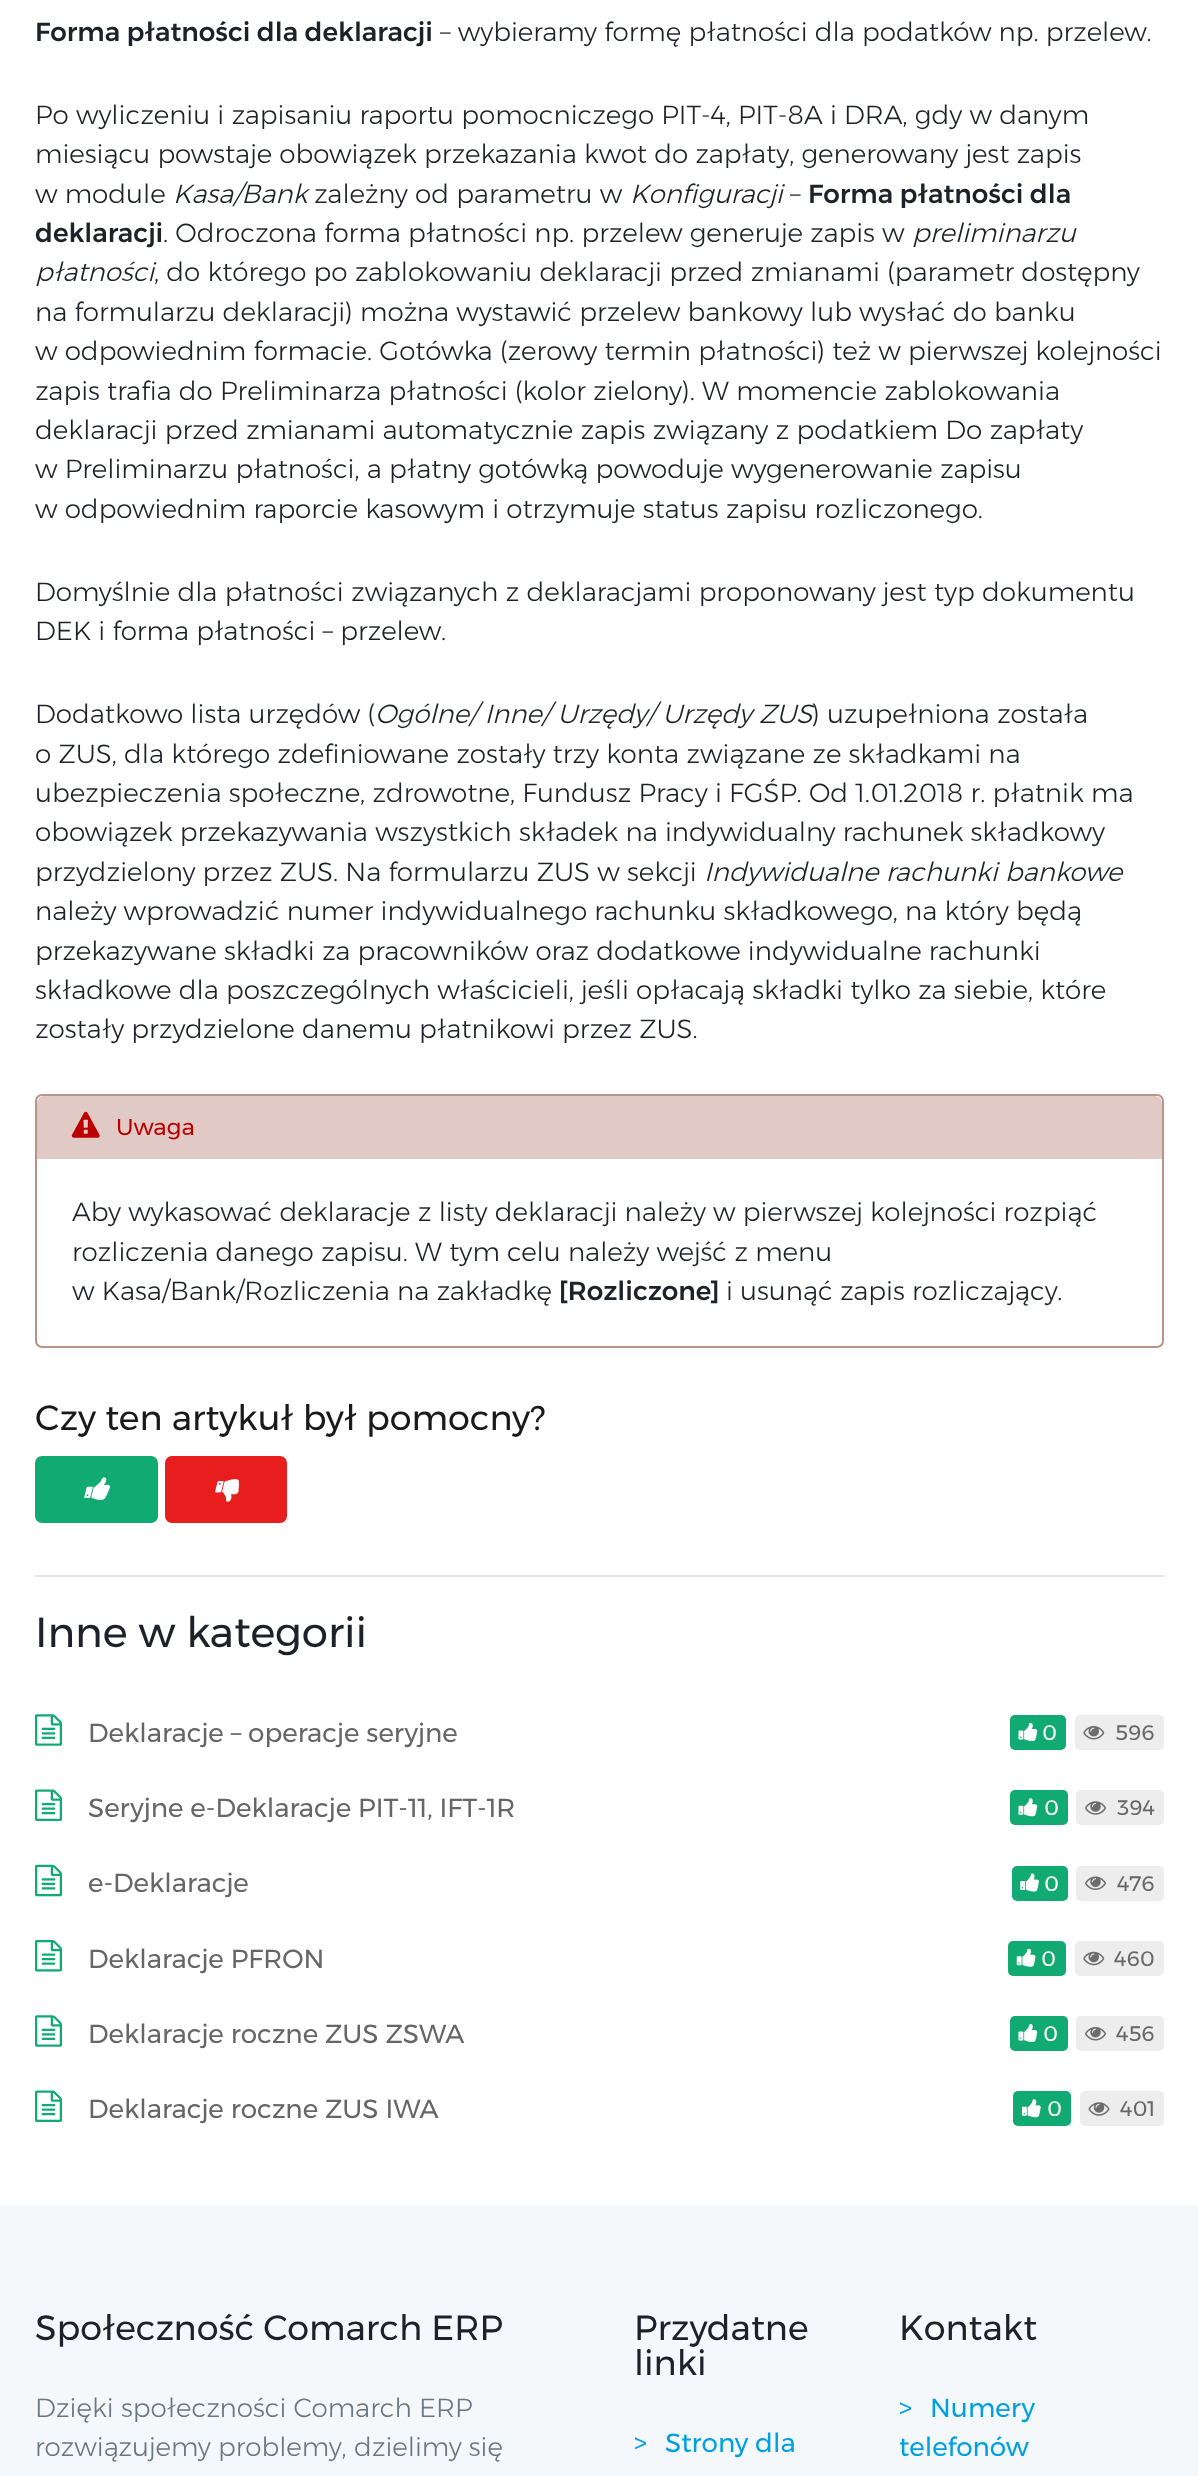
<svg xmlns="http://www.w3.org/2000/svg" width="1198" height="2476">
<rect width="100%" height="100%" fill="#fff"/>
<rect x="35" y="1575" width="1129" height="2" fill="#e5e6e9"/>
<text x="35" y="41" style="font-family:Montserrat;font-size:26.25px;font-weight:500;fill:#1e2129">Forma płatności dla deklaracji</text>
<text x="440" y="41" style="font-family:Montserrat;font-size:26.25px;font-weight:300;fill:#1e2129">– wybieramy formę płatności dla podatków np. przelew.</text>
<text x="35" y="124" style="font-family:Montserrat;font-size:26.25px;font-weight:300;fill:#1e2129">Po wyliczeniu i zapisaniu raportu pomocniczego PIT-4, PIT-8A i DRA, gdy w danym</text>
<text x="35" y="163" style="font-family:Montserrat;font-size:26.25px;font-weight:300;fill:#1e2129">miesiącu powstaje obowiązek przekazania kwot do zapłaty, generowany jest zapis</text>
<text x="35" y="203" style="font-family:Montserrat;font-size:26.25px;font-weight:300;fill:#1e2129">w module</text>
<text x="173" y="203" style="font-family:Montserrat;font-size:26.25px;font-weight:300;font-style:italic;fill:#1e2129">Kasa/Bank</text>
<text x="314" y="203" style="font-family:Montserrat;font-size:26.25px;font-weight:300;fill:#1e2129">zależny od parametru w</text>
<text x="630" y="203" style="font-family:Montserrat;font-size:26.25px;font-weight:300;font-style:italic;fill:#1e2129">Konfiguracji</text>
<text x="790" y="203" style="font-family:Montserrat;font-size:26.25px;font-weight:300;fill:#1e2129">–</text>
<text x="808" y="203" style="font-family:Montserrat;font-size:26.25px;font-weight:500;fill:#1e2129">Forma płatności dla</text>
<text x="35" y="242" style="font-family:Montserrat;font-size:26.25px;font-weight:500;fill:#1e2129">deklaracji</text>
<text x="163" y="242" style="font-family:Montserrat;font-size:26.25px;font-weight:300;fill:#1e2129">. Odroczona forma płatności np. przelew generuje zapis w</text>
<text x="912" y="242" style="font-family:Montserrat;font-size:26.25px;font-weight:300;font-style:italic;fill:#1e2129">preliminarzu</text>
<text x="35" y="281" style="font-family:Montserrat;font-size:26.25px;font-weight:300;font-style:italic;fill:#1e2129">płatności</text>
<text x="154" y="281" style="font-family:Montserrat;font-size:26.25px;font-weight:300;fill:#1e2129">, do którego po zablokowaniu deklaracji przed zmianami (parametr dostępny</text>
<text x="35" y="321" style="font-family:Montserrat;font-size:26.25px;font-weight:300;fill:#1e2129">na formularzu deklaracji) można wystawić przelew bankowy lub wysłać do banku</text>
<text x="35" y="360" style="font-family:Montserrat;font-size:26.25px;font-weight:300;fill:#1e2129">w odpowiednim formacie. Gotówka (zerowy termin płatności) też w pierwszej kolejności</text>
<text x="35" y="400" style="font-family:Montserrat;font-size:26.25px;font-weight:300;fill:#1e2129">zapis trafia do Preliminarza płatności (kolor zielony). W momencie zablokowania</text>
<text x="35" y="439" style="font-family:Montserrat;font-size:26.25px;font-weight:300;fill:#1e2129">deklaracji przed zmianami automatycznie zapis związany z podatkiem Do zapłaty</text>
<text x="35" y="478" style="font-family:Montserrat;font-size:26.25px;font-weight:300;fill:#1e2129">w Preliminarzu płatności, a płatny gotówką powoduje wygenerowanie zapisu</text>
<text x="35" y="518" style="font-family:Montserrat;font-size:26.25px;font-weight:300;fill:#1e2129">w odpowiednim raporcie kasowym i otrzymuje status zapisu rozliczonego.</text>
<text x="35" y="601" style="font-family:Montserrat;font-size:26.25px;font-weight:300;fill:#1e2129">Domyślnie dla płatności związanych z deklaracjami proponowany jest typ dokumentu</text>
<text x="35" y="640" style="font-family:Montserrat;font-size:26.25px;font-weight:300;fill:#1e2129">DEK i forma płatności – przelew.</text>
<text x="35" y="723" style="font-family:Montserrat;font-size:26.25px;font-weight:300;fill:#1e2129">Dodatkowo lista urzędów (</text>
<text x="375" y="723" style="font-family:Montserrat;font-size:26.25px;font-weight:300;font-style:italic;fill:#1e2129">Ogólne/ Inne/ Urzędy/ Urzędy ZUS</text>
<text x="812" y="723" style="font-family:Montserrat;font-size:26.25px;font-weight:300;fill:#1e2129">) uzupełniona została</text>
<text x="35" y="763" style="font-family:Montserrat;font-size:26.25px;font-weight:300;fill:#1e2129">o ZUS, dla którego zdefiniowane zostały trzy konta związane ze składkami na</text>
<text x="35" y="802" style="font-family:Montserrat;font-size:26.25px;font-weight:300;fill:#1e2129">ubezpieczenia społeczne, zdrowotne, Fundusz Pracy i FGŚP. Od 1.01.2018 r. płatnik ma</text>
<text x="35" y="841" style="font-family:Montserrat;font-size:26.25px;font-weight:300;fill:#1e2129">obowiązek przekazywania wszystkich składek na indywidualny rachunek składkowy</text>
<text x="35" y="881" style="font-family:Montserrat;font-size:26.25px;font-weight:300;fill:#1e2129">przydzielony przez ZUS. Na formularzu ZUS w sekcji</text>
<text x="704" y="881" style="font-family:Montserrat;font-size:26.25px;font-weight:300;font-style:italic;fill:#1e2129">Indywidualne rachunki bankowe</text>
<text x="35" y="920" style="font-family:Montserrat;font-size:26.25px;font-weight:300;fill:#1e2129">należy wprowadzić numer indywidualnego rachunku składkowego, na który będą</text>
<text x="35" y="960" style="font-family:Montserrat;font-size:26.25px;font-weight:300;fill:#1e2129">przekazywane składki za pracowników oraz dodatkowe indywidualne rachunki</text>
<text x="35" y="999" style="font-family:Montserrat;font-size:26.25px;font-weight:300;fill:#1e2129">składkowe dla poszczególnych właścicieli, jeśli opłacają składki tylko za siebie, które</text>
<text x="35" y="1038" style="font-family:Montserrat;font-size:26.25px;font-weight:300;fill:#1e2129">zostały przydzielone danemu płatnikowi przez ZUS.</text>
<rect x="36" y="1095" width="1127" height="252" rx="6" fill="none" stroke="#bb938b" stroke-width="2"/>
<path d="M44 1096h1111c4 0 7 3 7 7v56h-1125v-56c0-4 3-7 7-7z" fill="#e1cac5"/>
<image x="71" y="1111" width="29" height="27" href="media/1.png"/>
<text x="116" y="1135" style="font-family:Montserrat;font-size:23px;fill:#ba0000">Uwaga</text>
<text x="72" y="1221" style="font-family:Montserrat;font-size:26.25px;font-weight:300;fill:#1e2129">Aby wykasować deklaracje z listy deklaracji należy w pierwszej kolejności rozpiąć</text>
<text x="72" y="1261" style="font-family:Montserrat;font-size:26.25px;font-weight:300;fill:#1e2129">rozliczenia danego zapisu. W tym celu należy wejść z menu</text>
<text x="72" y="1300" style="font-family:Montserrat;font-size:26.25px;font-weight:300;fill:#1e2129">w Kasa/Bank/Rozliczenia na zakładkę</text>
<text x="559" y="1300" style="font-family:Montserrat;font-size:26.25px;font-weight:500;fill:#1e2129">[Rozliczone]</text>
<text x="726" y="1300" style="font-family:Montserrat;font-size:26.25px;font-weight:300;fill:#1e2129">i usunąć zapis rozliczający.</text>
<text x="35" y="1430" style="font-family:Montserrat;font-size:35px;fill:#1a1a1a">Czy ten artykuł był pomocny?</text>
<rect x="35" y="1456" width="123" height="67" rx="7" fill="#11aa72"/>
<image x="84" y="1477" width="27" height="23" href="media/2.png"/>
<rect x="165" y="1456" width="122" height="67" rx="7" fill="#e81e1e"/>
<image x="215" y="1479" width="25" height="23" href="media/3.png"/>
<text x="35" y="1647" style="font-family:Montserrat;font-size:42px;fill:#1e2129">Inne w kategorii</text>
<image x="35" y="1714" width="27" height="32" href="media/4.png"/>
<text x="88" y="1742" style="font-family:Montserrat;font-size:26.25px;fill:#666">Deklaracje – operacje seryjne</text>
<rect x="1010" y="1715" width="56" height="35" rx="5" fill="#11aa72"/>
<image x="1018" y="1723" width="20" height="18" href="media/5.png"/>
<text x="1042" y="1740" style="font-family:Montserrat;font-size:21px;fill:#fff">0</text>
<rect x="1075" y="1715" width="89" height="35" rx="5" fill="#ededed"/>
<image x="1083" y="1726" width="22" height="14" href="media/6.png"/>
<text x="1115" y="1740" style="font-family:Montserrat;font-size:21px;fill:#666">596</text>
<image x="35" y="1789" width="27" height="32" href="media/7.png"/>
<text x="88" y="1817" style="font-family:Montserrat;font-size:26.25px;fill:#666">Seryjne e-Deklaracje PIT-11, IFT-1R</text>
<rect x="1010" y="1790" width="58" height="35" rx="5" fill="#11aa72"/>
<image x="1018" y="1798" width="20" height="19" href="media/8.png"/>
<text x="1044" y="1815" style="font-family:Montserrat;font-size:21px;fill:#fff">0</text>
<rect x="1076" y="1790" width="88" height="35" rx="5" fill="#ededed"/>
<image x="1085" y="1801" width="21" height="14" href="media/9.png"/>
<text x="1117" y="1815" style="font-family:Montserrat;font-size:21px;fill:#666">394</text>
<image x="35" y="1864" width="27" height="33" href="media/10.png"/>
<text x="88" y="1892" style="font-family:Montserrat;font-size:26.25px;fill:#666">e-Deklaracje</text>
<rect x="1012" y="1866" width="56" height="35" rx="5" fill="#11aa72"/>
<image x="1020" y="1873" width="19" height="19" href="media/11.png"/>
<text x="1044" y="1891" style="font-family:Montserrat;font-size:21px;fill:#fff">0</text>
<rect x="1076" y="1866" width="88" height="35" rx="5" fill="#ededed"/>
<image x="1085" y="1876" width="21" height="14" href="media/12.png"/>
<text x="1117" y="1891" style="font-family:Montserrat;font-size:21px;fill:#666">476</text>
<image x="35" y="1940" width="27" height="32" href="media/13.png"/>
<text x="88" y="1968" style="font-family:Montserrat;font-size:26.25px;fill:#666">Deklaracje PFRON</text>
<rect x="1008" y="1941" width="58" height="35" rx="5" fill="#11aa72"/>
<image x="1016" y="1948" width="20" height="19" href="media/14.png"/>
<text x="1041" y="1966" style="font-family:Montserrat;font-size:21px;fill:#fff">0</text>
<rect x="1075" y="1941" width="89" height="35" rx="5" fill="#ededed"/>
<image x="1083" y="1951" width="22" height="15" href="media/15.png"/>
<text x="1114" y="1966" style="font-family:Montserrat;font-size:21px;fill:#666">460</text>
<image x="35" y="2015" width="27" height="32" href="media/4.png"/>
<text x="88" y="2043" style="font-family:Montserrat;font-size:26.25px;fill:#666">Deklaracje roczne ZUS ZSWA</text>
<rect x="1010" y="2016" width="58" height="35" rx="5" fill="#11aa72"/>
<image x="1018" y="2024" width="20" height="18" href="media/5.png"/>
<text x="1043" y="2041" style="font-family:Montserrat;font-size:21px;fill:#fff">0</text>
<rect x="1076" y="2016" width="88" height="35" rx="5" fill="#ededed"/>
<image x="1085" y="2027" width="21" height="14" href="media/16.png"/>
<text x="1116" y="2041" style="font-family:Montserrat;font-size:21px;fill:#666">456</text>
<image x="35" y="2090" width="27" height="32" href="media/7.png"/>
<text x="88" y="2118" style="font-family:Montserrat;font-size:26.25px;fill:#666">Deklaracje roczne ZUS IWA</text>
<rect x="1013" y="2091" width="58" height="35" rx="5" fill="#11aa72"/>
<image x="1022" y="2099" width="19" height="19" href="media/17.png"/>
<text x="1047" y="2116" style="font-family:Montserrat;font-size:21px;fill:#fff">0</text>
<rect x="1080" y="2091" width="84" height="35" rx="5" fill="#ededed"/>
<image x="1088" y="2102" width="22" height="14" href="media/18.png"/>
<text x="1120" y="2116" style="font-family:Montserrat;font-size:21px;fill:#666">401</text>
<rect y="2205" width="1198" height="271" fill="#f5f8fa"/>
<text x="35" y="2340" style="font-family:Montserrat;font-size:35px;fill:#1e2129">Społeczność Comarch ERP</text>
<text x="35" y="2417" style="font-family:Montserrat;font-size:26.25px;font-weight:300;fill:#697780">Dzięki społeczności Comarch ERP</text>
<text x="35" y="2456" style="font-family:Montserrat;font-size:26.25px;font-weight:300;fill:#697780">rozwiązujemy problemy, dzielimy się</text>
<text x="634" y="2340" style="font-family:Montserrat;font-size:35px;fill:#1e2129">Przydatne</text>
<text x="634" y="2375" style="font-family:Montserrat;font-size:35px;fill:#1e2129">linki</text>
<text x="634" y="2452" style="font-family:Montserrat;font-size:26.25px;fill:#00a0e3">&gt;</text>
<text x="665" y="2452" style="font-family:Montserrat;font-size:26.25px;fill:#00a0e3">Strony dla</text>
<text x="899" y="2340" style="font-family:Montserrat;font-size:35px;fill:#1e2129">Kontakt</text>
<text x="899" y="2417" style="font-family:Montserrat;font-size:26.25px;fill:#00a0e3">&gt;</text>
<text x="930" y="2417" style="font-family:Montserrat;font-size:26.25px;fill:#00a0e3">Numery</text>
<text x="899" y="2456" style="font-family:Montserrat;font-size:26.25px;fill:#00a0e3">telefonów</text>
</svg>
